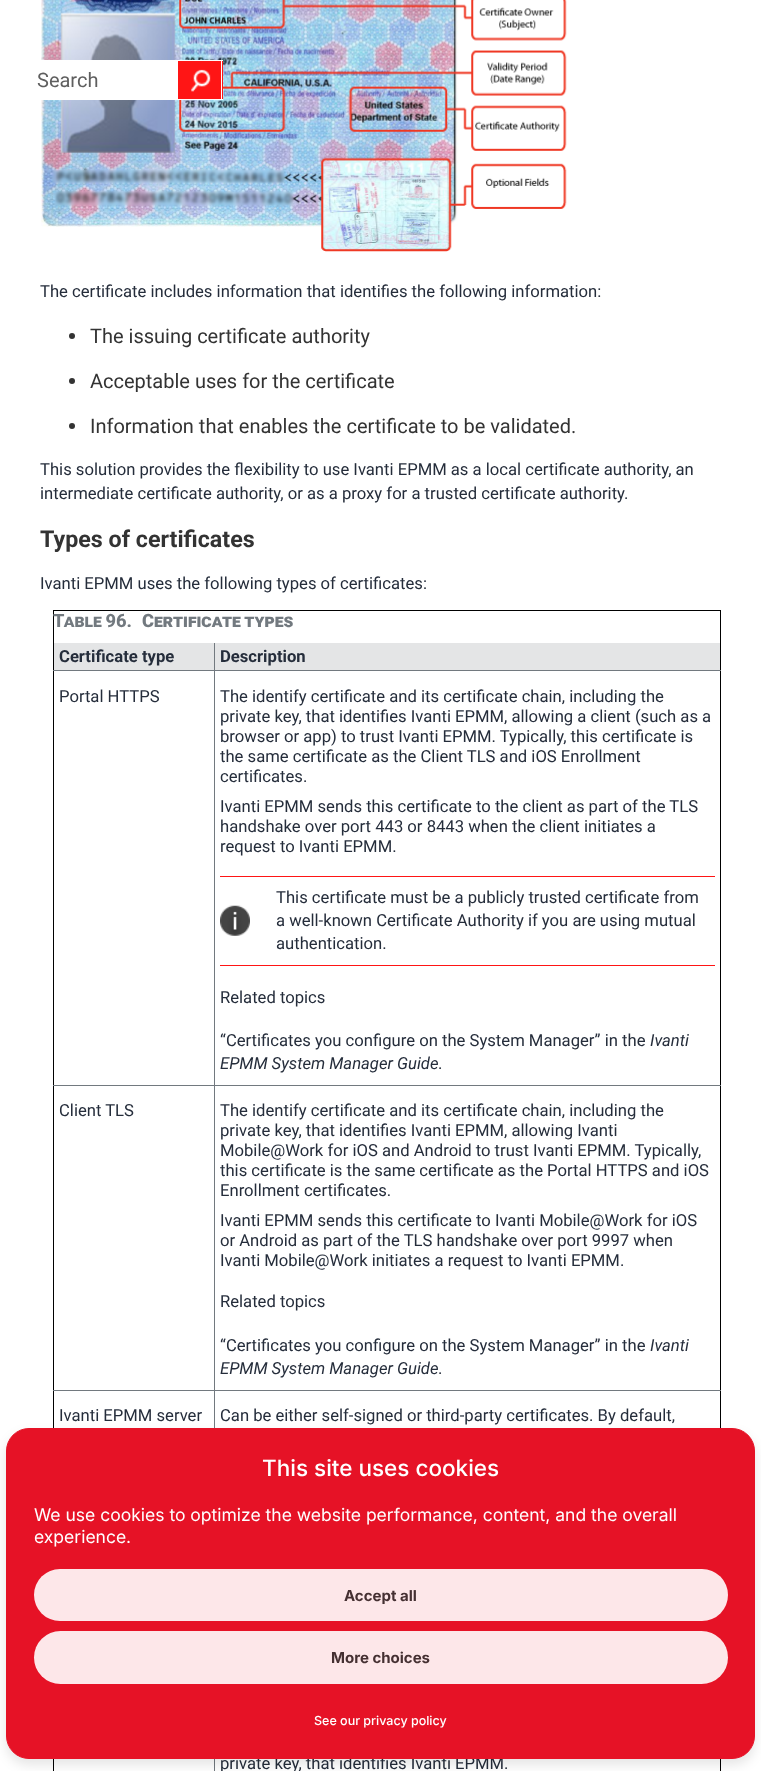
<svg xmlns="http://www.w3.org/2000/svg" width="761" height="1771">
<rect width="100%" height="100%" fill="#fff"/>
<image x="41" y="0" width="526" height="252" href="media/2.png"/>
<rect x="41" y="60" width="137" height="40" fill="#fff"/>
<text x="37" y="87" style="font-family:Roboto;font-size:20px;fill:#5f5f5f">Search</text>
<rect x="178" y="61" width="45" height="38" fill="#ff1515"/>
<image x="191" y="69" width="20" height="23" href="media/1.png"/>
<rect x="178" y="60" width="45" height="1" fill="#fff"/>
<rect x="221" y="60" width="1" height="40" fill="#fff"/>
<rect x="178" y="99" width="45" height="1" fill="#fff"/>
<text x="40" y="297" style="font-family:Roboto;font-size:16.65px;fill:#252d3b">The certificate includes information that identifies the following information:</text>
<circle cx="72" cy="336" r="3" fill="#333"/>
<text x="90" y="343" style="font-family:Roboto;font-size:20px;fill:#333">The issuing certificate authority</text>
<circle cx="72" cy="381" r="3" fill="#333"/>
<text x="90" y="388" style="font-family:Roboto;font-size:20px;fill:#333">Acceptable uses for the certificate</text>
<circle cx="72" cy="426" r="3" fill="#333"/>
<text x="90" y="433" style="font-family:Roboto;font-size:20px;fill:#333">Information that enables the certificate to be validated.</text>
<text x="40" y="475" style="font-family:Roboto;font-size:16.65px;fill:#252d3b">This solution provides the flexibility to use Ivanti EPMM as a local certificate authority, an</text>
<text x="40" y="499" style="font-family:Roboto;font-size:16.65px;fill:#252d3b">intermediate certificate authority, or as a proxy for a trusted certificate authority.</text>
<text x="40" y="547" style="font-family:Roboto;font-size:23.25px;font-weight:bold;fill:#333">Types of certificates</text>
<text x="40" y="589" style="font-family:Roboto;font-size:16.65px;fill:#252d3b">Ivanti EPMM uses the following types of certificates:</text>
<rect x="53" y="610" width="668" height="1" fill="#000"/>
<rect x="720" y="610" width="1" height="1161" fill="#000"/>
<rect x="53" y="610" width="1" height="1161" fill="#000"/>
<text x="53" y="627" word-spacing="-1" style="font-family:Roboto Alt;font-size:18.25px;font-weight:800;fill:#72797f">Table 96.</text>
<text x="142" y="627" word-spacing="-1" style="font-family:Roboto Alt;font-size:18.25px;font-weight:900;fill:#72797f">Certificate types</text>
<rect x="54" y="643" width="160" height="27" fill="#e4e5e6"/>
<rect x="214" y="1390" width="1" height="38" fill="#72797f"/>
<rect x="214" y="1390" width="507" height="1" fill="#72797f"/>
<rect x="214" y="1085" width="1" height="306" fill="#72797f"/>
<rect x="214" y="1085" width="507" height="1" fill="#72797f"/>
<rect x="214" y="670" width="1" height="416" fill="#72797f"/>
<rect x="214" y="670" width="507" height="1" fill="#72797f"/>
<rect x="214" y="643" width="1" height="28" fill="#72797f"/>
<rect x="53" y="670" width="162" height="1" fill="#72797f"/>
<text x="59" y="662" style="font-family:Roboto;font-size:16.65px;font-weight:bold;fill:#252d3b">Certificate type</text>
<rect x="215" y="643" width="505" height="27" fill="#e4e5e6"/>
<text x="220" y="662" style="font-family:Roboto;font-size:16.65px;font-weight:bold;fill:#252d3b">Description</text>
<rect x="53" y="1085" width="162" height="1" fill="#72797f"/>
<text x="59" y="702" style="font-family:Roboto;font-size:16.65px;fill:#252d3b">Portal HTTPS</text>
<text x="220" y="702" style="font-family:Roboto;font-size:16.65px;fill:#252d3b">The identify certificate and its certificate chain, including the</text>
<text x="220" y="722" style="font-family:Roboto;font-size:16.65px;fill:#252d3b">private key, that identifies Ivanti EPMM, allowing a client (such as a</text>
<text x="220" y="742" style="font-family:Roboto;font-size:16.65px;fill:#252d3b">browser or app) to trust Ivanti EPMM. Typically, this certificate is</text>
<text x="220" y="762" style="font-family:Roboto;font-size:16.65px;fill:#252d3b">the same certificate as the Client TLS and iOS Enrollment</text>
<text x="220" y="782" style="font-family:Roboto;font-size:16.65px;fill:#252d3b">certificates.</text>
<text x="220" y="812" style="font-family:Roboto;font-size:16.65px;fill:#252d3b">Ivanti EPMM sends this certificate to the client as part of the TLS</text>
<text x="220" y="832" style="font-family:Roboto;font-size:16.65px;fill:#252d3b">handshake over port 443 or 8443 when the client initiates a</text>
<text x="220" y="852" style="font-family:Roboto;font-size:16.65px;fill:#252d3b">request to Ivanti EPMM.</text>
<image x="220" y="905" width="30" height="31" href="media/3.png"/>
<rect x="220" y="876" width="495" height="1" fill="#ff1515"/>
<rect x="220" y="965" width="495" height="1" fill="#ff1515"/>
<text x="276" y="903" style="font-family:Roboto;font-size:16.65px;fill:#252d3b">This certificate must be a publicly trusted certificate from</text>
<text x="276" y="926" style="font-family:Roboto;font-size:16.65px;fill:#252d3b">a well-known Certificate Authority if you are using mutual</text>
<text x="276" y="949" style="font-family:Roboto;font-size:16.65px;fill:#252d3b">authentication.</text>
<text x="220" y="1003" style="font-family:Roboto;font-size:16.65px;fill:#252d3b">Related topics</text>
<text x="220" y="1046" style="font-family:Roboto;font-size:16.65px;fill:#252d3b">“Certificates you configure on the System Manager” in the</text>
<text x="650" y="1046" style="font-family:Roboto;font-size:16.65px;font-style:italic;fill:#252d3b">Ivanti</text>
<text x="220" y="1069" style="font-family:Roboto;font-size:16.65px;font-style:italic;fill:#252d3b">EPMM System Manager Guide</text>
<text x="438" y="1069" style="font-family:Roboto;font-size:16.65px;fill:#252d3b">.</text>
<rect x="53" y="1390" width="162" height="1" fill="#72797f"/>
<text x="59" y="1116" style="font-family:Roboto;font-size:16.65px;fill:#252d3b">Client TLS</text>
<text x="220" y="1116" style="font-family:Roboto;font-size:16.65px;fill:#252d3b">The identify certificate and its certificate chain, including the</text>
<text x="220" y="1136" style="font-family:Roboto;font-size:16.65px;fill:#252d3b">private key, that identifies Ivanti EPMM, allowing Ivanti</text>
<text x="220" y="1156" style="font-family:Roboto;font-size:16.65px;fill:#252d3b">Mobile@Work for iOS and Android to trust Ivanti EPMM. Typically,</text>
<text x="220" y="1176" style="font-family:Roboto;font-size:16.65px;fill:#252d3b">this certificate is the same certificate as the Portal HTTPS and iOS</text>
<text x="220" y="1196" style="font-family:Roboto;font-size:16.65px;fill:#252d3b">Enrollment certificates.</text>
<text x="220" y="1226" style="font-family:Roboto;font-size:16.65px;fill:#252d3b">Ivanti EPMM sends this certificate to Ivanti Mobile@Work for iOS</text>
<text x="220" y="1246" style="font-family:Roboto;font-size:16.65px;fill:#252d3b">or Android as part of the TLS handshake over port 9997 when</text>
<text x="220" y="1266" style="font-family:Roboto;font-size:16.65px;fill:#252d3b">Ivanti Mobile@Work initiates a request to Ivanti EPMM.</text>
<text x="220" y="1307" style="font-family:Roboto;font-size:16.65px;fill:#252d3b">Related topics</text>
<text x="220" y="1351" style="font-family:Roboto;font-size:16.65px;fill:#252d3b">“Certificates you configure on the System Manager” in the</text>
<text x="650" y="1351" style="font-family:Roboto;font-size:16.65px;font-style:italic;fill:#252d3b">Ivanti</text>
<text x="220" y="1374" style="font-family:Roboto;font-size:16.65px;font-style:italic;fill:#252d3b">EPMM System Manager Guide</text>
<text x="438" y="1374" style="font-family:Roboto;font-size:16.65px;fill:#252d3b">.</text>
<text x="59" y="1421" style="font-family:Roboto;font-size:16.65px;fill:#252d3b">Ivanti EPMM server</text>
<text x="220" y="1421" style="font-family:Roboto;font-size:16.65px;fill:#252d3b">Can be either self-signed or third-party certificates. By default,</text>
<rect x="214" y="1759" width="1" height="12" fill="#72797f"/>
<text x="220" y="1769" style="font-family:Roboto;font-size:16.65px;fill:#252d3b">private key, that identifies Ivanti EPMM.</text>
<rect x="6" y="1434" width="749" height="331" rx="23" fill="#0000001a" filter="blur(6px)"/>
<rect x="6.5" y="1428.5" width="748" height="330" rx="22.5" fill="#e61226" stroke="#e61226"/>
<text x="262" y="1476" style="font-family:Inter;font-size:22.5px;font-weight:500;fill:#fff">This site uses cookies</text>
<text x="34" y="1521" style="font-family:Inter;font-size:17.5px;fill:#fff">We use cookies to optimize the website performance, content, and the overall</text>
<text x="34" y="1543" style="font-family:Inter;font-size:17.5px;fill:#fff">experience.</text>
<rect x="34" y="1569" width="694" height="52" rx="26" fill="#fde7e9"/>
<text x="344" y="1601" style="font-family:Inter;font-size:15px;font-weight:bold;fill:#453032">Accept all</text>
<rect x="34" y="1631" width="694" height="53" rx="26.5" fill="#fde7e9"/>
<text x="331" y="1663" style="font-family:Inter;font-size:15px;font-weight:bold;fill:#453032">More choices</text>
<text x="314" y="1725" style="font-family:Inter;font-size:12.5px;font-weight:500;fill:#fff">See our privacy policy</text>
</svg>
